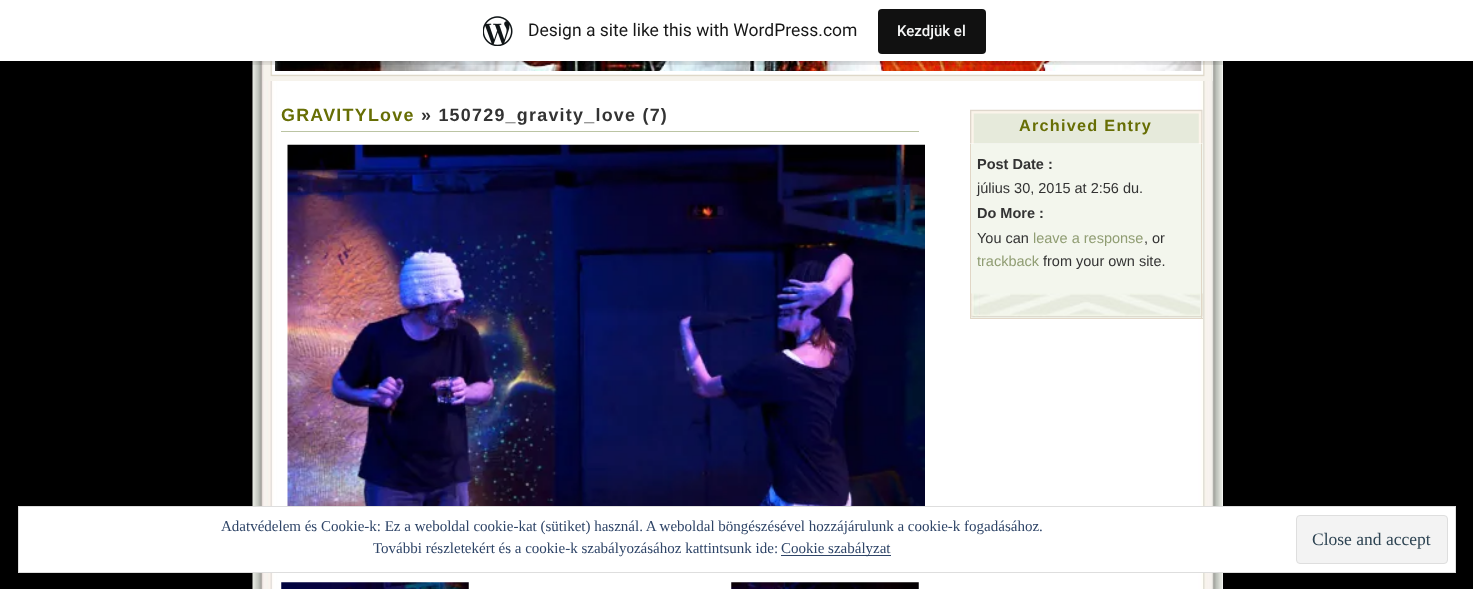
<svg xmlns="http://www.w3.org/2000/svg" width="1473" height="589">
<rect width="100%" height="100%" fill="#000"/>
<rect x="1222" y="61" width="1" height="528" fill="#fff"/>
<image x="252" y="61" width="971" height="528" href="media/1.png"/>
<rect x="1201" y="61" width="12" height="20" fill="#fff"/>
<image x="263" y="61" width="950" height="20" href="media/3.png"/>
<image x="275" y="61" width="927" height="10" href="media/4.png"/>
<rect y="1" width="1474" height="62" fill="#0000000d" filter="blur(1px)"/>
<path d="M1 61v4h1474v-61h-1v57z" fill="#00000014"/>
<rect width="1473" height="61" fill="#fff"/>
<image x="483" y="16" width="30" height="30" href="media/2.png"/>
<text x="528" y="36" style="font-family:Roboto;font-size:17.5px;fill:#171717">Design a site like this with WordPress.com</text>
<rect x="878" y="9" width="108" height="45" rx="4" fill="#111"/>
<text x="897" y="36" style="font-family:Roboto;font-size:15px;font-weight:500;fill:#f6f7f7">Kezdjük el</text>
<text x="281" y="121" style="font-family:Liberation Sans;font-size:17.9px;font-weight:bold;letter-spacing:1.25px;fill:#676e04">GRAVITYLove</text>
<text x="421" y="121" style="font-family:Liberation Sans;font-size:17.9px;font-weight:bold;letter-spacing:1.25px;fill:#333">» 150729_gravity_love (7)</text>
<rect x="281" y="131" width="638" height="1" fill="#bbc4a3"/>
<image x="287" y="144" width="638" height="362" href="media/5.png"/>
<image x="281" y="582" width="188" height="7" href="media/6.png"/>
<image x="731" y="582" width="188" height="7" href="media/7.png"/>
<image x="970" y="109" width="233" height="35" href="media/8.png"/>
<text x="1019" y="131" style="font-family:Liberation Sans;font-size:16.25px;font-weight:bold;letter-spacing:1.25px;fill:#676e04">Archived Entry</text>
<rect x="971" y="144" width="232" height="174" fill="#f3f6ed"/>
<image x="971" y="293" width="232" height="25" href="media/9.png"/>
<rect x="1201" y="144" width="1" height="175" fill="#e1d6c6"/>
<rect x="970" y="318" width="233" height="1" fill="#e1d6c6"/>
<rect x="970" y="144" width="1" height="175" fill="#e1d6c6"/>
<text x="977" y="169" style="font-family:Liberation Sans;font-size:14.5px;font-weight:bold;fill:#333">Post Date :</text>
<text x="977" y="193" style="font-family:Liberation Sans;font-size:14.5px;fill:#333">július 30, 2015 at 2:56 du.</text>
<text x="977" y="218" style="font-family:Liberation Sans;font-size:14.5px;font-weight:bold;fill:#333">Do More :</text>
<text x="977" y="243" style="font-family:Liberation Sans;font-size:14.5px;fill:#333">You can</text>
<text x="1033" y="243" style="font-family:Liberation Sans;font-size:14.5px;fill:#909d73">leave a response</text>
<text x="1144" y="243" style="font-family:Liberation Sans;font-size:14.5px;fill:#333">, or</text>
<text x="977" y="266" style="font-family:Liberation Sans;font-size:14.5px;fill:#909d73">trackback</text>
<text x="1043" y="266" style="font-family:Liberation Sans;font-size:14.5px;fill:#333">from your own site.</text>
<rect x="18.5" y="506.5" width="1437" height="66" fill="#fff" stroke="#dedede"/>
<text x="221" y="531" style="font-family:Liberation Serif;font-size:15px;fill:#2e4467">Adatvédelem és Cookie-k: Ez a weboldal cookie-kat (sütiket) használ. A weboldal böngészésével hozzájárulunk a cookie-k fogadásához.</text>
<text x="373" y="553" style="font-family:Liberation Serif;font-size:15px;fill:#2e4467">További részletekért és a cookie-k szabályozásához kattintsunk ide:</text>
<rect x="781" y="555" width="110" height="1" fill="#2e4467"/>
<text x="781" y="553" style="font-family:Liberation Serif;font-size:15px;fill:#2e4467">Cookie szabályzat</text>
<rect x="1296.5" y="515.5" width="151" height="48" rx="3.5" fill="#f3f3f3" stroke="#dedede"/>
<text x="1312" y="545" style="font-family:Liberation Serif;font-size:17.5px;fill:#2e4453">Close and accept</text>
</svg>
